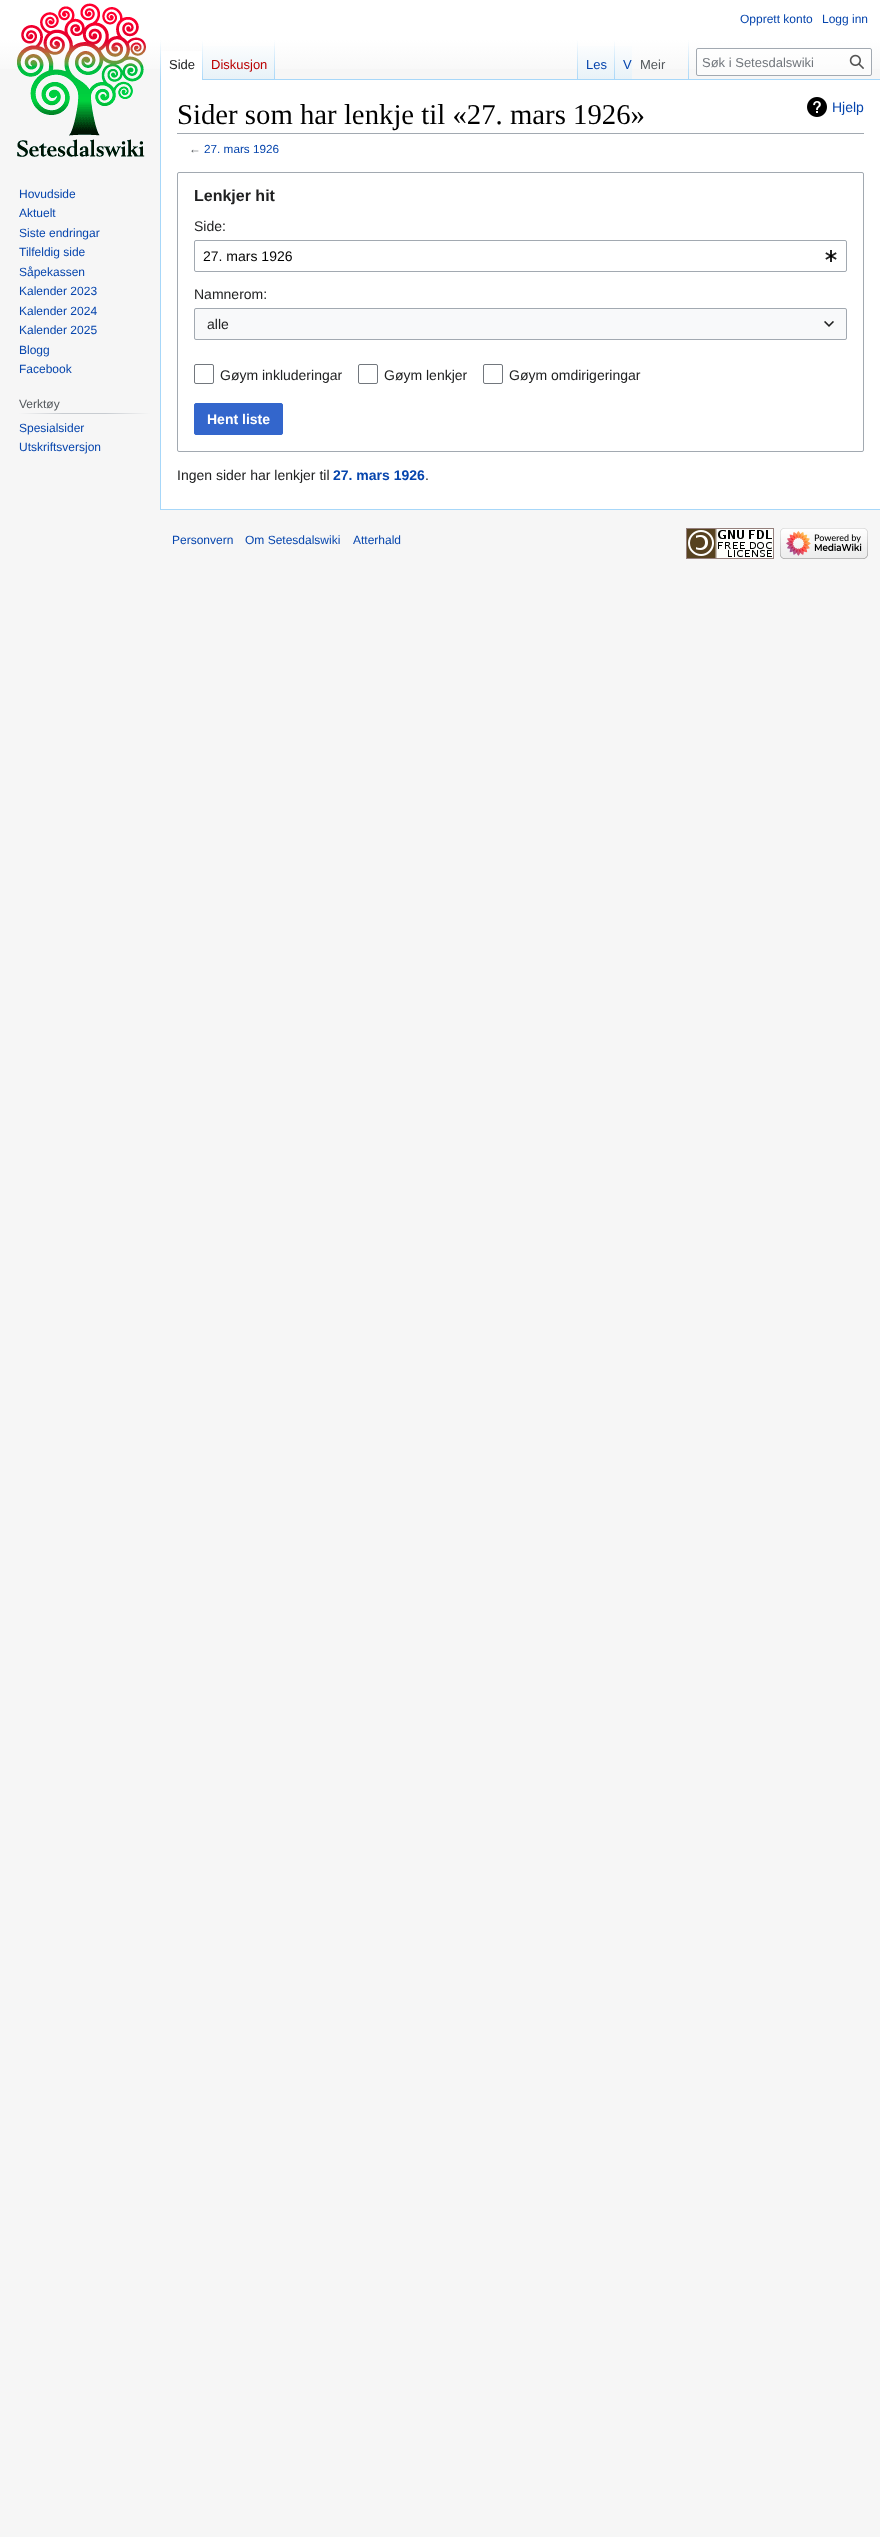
<svg xmlns="http://www.w3.org/2000/svg" width="880" height="2537">
<defs>
<linearGradient id="g1" gradientUnits="userSpaceOnUse" x1="440" y1="0" x2="440" y2="80"><stop offset="0.5" stop-color="#fff"/><stop offset="1" stop-color="#f6f6f6"/></linearGradient>
<linearGradient id="g2" gradientUnits="userSpaceOnUse" x1="161" y1="40" x2="161" y2="80"><stop offset="0" stop-color="#a7d7f9" stop-opacity="0"/><stop offset="1" stop-color="#a7d7f9"/></linearGradient>
<linearGradient id="g3" gradientUnits="userSpaceOnUse" x1="203" y1="40" x2="203" y2="80"><stop offset="0" stop-color="#fff"/><stop offset="1" stop-color="#a7d7f9"/></linearGradient>
<linearGradient id="g4" gradientUnits="userSpaceOnUse" x1="239" y1="80" x2="239" y2="40"><stop offset="0" stop-color="#77c1f6"/><stop offset="0.03" stop-color="#e8f2f8"/><stop offset="1" stop-color="#fff"/></linearGradient>
<linearGradient id="g5" gradientUnits="userSpaceOnUse" x1="275" y1="40" x2="275" y2="80"><stop offset="0" stop-color="#a7d7f9" stop-opacity="0"/><stop offset="1" stop-color="#a7d7f9"/></linearGradient>
<linearGradient id="g6" gradientUnits="userSpaceOnUse" x1="578" y1="40" x2="578" y2="80"><stop offset="0" stop-color="#a7d7f9" stop-opacity="0"/><stop offset="1" stop-color="#a7d7f9"/></linearGradient>
<linearGradient id="g7" gradientUnits="userSpaceOnUse" x1="597" y1="80" x2="597" y2="40"><stop offset="0" stop-color="#77c1f6"/><stop offset="0.03" stop-color="#e8f2f8"/><stop offset="1" stop-color="#fff"/></linearGradient>
<linearGradient id="g8" gradientUnits="userSpaceOnUse" x1="615" y1="40" x2="615" y2="80"><stop offset="0" stop-color="#a7d7f9" stop-opacity="0"/><stop offset="1" stop-color="#a7d7f9"/></linearGradient>
<linearGradient id="g9" gradientUnits="userSpaceOnUse" x1="624" y1="80" x2="624" y2="40"><stop offset="0" stop-color="#77c1f6"/><stop offset="0.03" stop-color="#e8f2f8"/><stop offset="1" stop-color="#fff"/></linearGradient>
<linearGradient id="g10" gradientUnits="userSpaceOnUse" x1="689" y1="40" x2="689" y2="80"><stop offset="0" stop-color="#a7d7f9" stop-opacity="0"/><stop offset="1" stop-color="#a7d7f9"/></linearGradient>
<linearGradient id="g11" gradientUnits="userSpaceOnUse" x1="19" y1="414" x2="150" y2="414"><stop offset="0" stop-color="#f6f6f6"/><stop offset="0.33" stop-color="#c8ccd1"/><stop offset="0.66" stop-color="#c8ccd1"/><stop offset="1" stop-color="#f6f6f6"/></linearGradient>
</defs>
<rect width="100%" height="100%" fill="#f6f6f6"/>
<rect width="880" height="69" fill="url(#g1)"/>
<text x="740" y="23" style="font-family:Liberation Sans;font-size:12px;fill:#0645ad">Opprett konto</text>
<text x="822" y="23" style="font-family:Liberation Sans;font-size:12px;fill:#0645ad">Logg inn</text>
<rect x="160" y="509" width="720" height="1" fill="#a7d7f9"/>
<rect x="160" y="79" width="1" height="431" fill="#a7d7f9"/>
<rect x="160" y="40" width="1" height="40" fill="url(#g2)"/>
<rect x="161" y="51" width="41" height="29" fill="#fff"/>
<rect x="202" y="40" width="1" height="40" fill="url(#g3)"/>
<text x="169" y="69" style="font-family:Liberation Sans;font-size:13px;fill:#202122">Side</text>
<rect x="203" y="46" width="72" height="34" fill="url(#g4)"/>
<rect x="274" y="40" width="1" height="40" fill="url(#g5)"/>
<text x="211" y="69" style="font-family:Liberation Sans;font-size:13px;fill:#ba0000">Diskusjon</text>
<rect x="275" y="79" width="605" height="1" fill="#a7d7f9"/>
<rect x="577" y="40" width="1" height="40" fill="url(#g6)"/>
<rect x="578" y="46" width="37" height="33" fill="url(#g7)"/>
<rect x="614" y="40" width="1" height="40" fill="url(#g8)"/>
<text x="586" y="69" style="font-family:Liberation Sans;font-size:13px;fill:#0645ad">Les</text>
<rect x="615" y="46" width="17" height="33" fill="url(#g9)"/>
<text x="623" y="69" style="font-family:Liberation Sans;font-size:13px;fill:#0645ad">V</text>
<rect x="688" y="40" width="1" height="40" fill="url(#g10)"/>
<text x="640" y="69" style="font-family:Liberation Sans;font-size:13px;fill:#54595d">Meir</text>
<rect x="696.5" y="48.5" width="175" height="27" rx="1.5" fill="#ffffff80" stroke="#a2a9b1"/>
<text x="702" y="67" style="font-family:Liberation Sans;font-size:13px;fill:#72777d">Søk i Setesdalswiki</text>
<image x="849" y="54" width="15" height="15" href="media/1.png"/>
<image x="17" y="3" width="129" height="154" href="media/2.png"/>
<text x="19" y="198" style="font-family:Liberation Sans;font-size:12px;fill:#0645ad">Hovudside</text>
<text x="19" y="217" style="font-family:Liberation Sans;font-size:12px;fill:#0645ad">Aktuelt</text>
<text x="19" y="237" style="font-family:Liberation Sans;font-size:12px;fill:#0645ad">Siste endringar</text>
<text x="19" y="256" style="font-family:Liberation Sans;font-size:12px;fill:#0645ad">Tilfeldig side</text>
<text x="19" y="276" style="font-family:Liberation Sans;font-size:12px;fill:#0645ad">Såpekassen</text>
<text x="19" y="295" style="font-family:Liberation Sans;font-size:12px;fill:#0645ad">Kalender 2023</text>
<text x="19" y="315" style="font-family:Liberation Sans;font-size:12px;fill:#0645ad">Kalender 2024</text>
<text x="19" y="334" style="font-family:Liberation Sans;font-size:12px;fill:#0645ad">Kalender 2025</text>
<text x="19" y="354" style="font-family:Liberation Sans;font-size:12px;fill:#0645ad">Blogg</text>
<text x="19" y="373" style="font-family:Liberation Sans;font-size:12px;fill:#0645ad">Facebook</text>
<rect x="19" y="413" width="131" height="1" fill="url(#g11)"/>
<text x="19" y="408" style="font-family:Liberation Sans;font-size:12px;fill:#54595d">Verktøy</text>
<text x="19" y="432" style="font-family:Liberation Sans;font-size:12px;fill:#0645ad">Spesialsider</text>
<text x="19" y="451" style="font-family:Liberation Sans;font-size:12px;fill:#0645ad">Utskriftsversjon</text>
<rect x="161" y="80" width="719" height="429" fill="#fff"/>
<rect x="177" y="133" width="687" height="1" fill="#a2a9b1"/>
<text x="177" y="124" style="font-family:Liberation Serif;font-size:28.75px;fill:#000">Sider som har lenkje til «27. mars 1926»</text>
<image x="807" y="97" width="20" height="20" href="media/3.png"/>
<text x="832" y="112" style="font-family:Liberation Sans;font-size:14px;fill:#0645ad">Hjelp</text>
<text x="189" y="153" style="font-family:Liberation Sans;font-size:11.75px;fill:#54595d">←</text>
<text x="204" y="153" style="font-family:Liberation Sans;font-size:11.75px;fill:#0645ad">27. mars 1926</text>
<rect x="177.5" y="172.5" width="686" height="279" rx="1.5" fill="none" stroke="#a2a9b1"/>
<text x="194" y="201" style="font-family:Liberation Sans;font-size:16px;font-weight:bold;fill:#202122">Lenkjer hit</text>
<text x="194" y="231" style="font-family:Liberation Sans;font-size:14px;fill:#202122">Side:</text>
<rect x="194.5" y="240.5" width="652" height="31" rx="1.5" fill="none" stroke="#a2a9b1"/>
<text x="203" y="261" style="font-family:Liberation Sans;font-size:14px;fill:#000">27. mars 1926</text>
<image x="825" y="250" width="12" height="12" href="media/4.png"/>
<text x="194" y="299" style="font-family:Liberation Sans;font-size:14px;fill:#202122">Namnerom:</text>
<rect x="194" y="308" width="653" height="32" fill="#f8f9fa"/>
<rect x="194.5" y="308.5" width="652" height="31" rx="1.5" fill="none" stroke="#a2a9b1"/>
<text x="207" y="329" style="font-family:Liberation Sans;font-size:14px;fill:#202122">alle</text>
<image x="824" y="321" width="10" height="6" href="media/5.png"/>
<rect x="194.5" y="364.5" width="19" height="19" rx="1.5" fill="none" stroke="#72777d"/>
<text x="220" y="380" style="font-family:Liberation Sans;font-size:14px;fill:#202122">Gøym inkluderingar</text>
<rect x="358.5" y="364.5" width="19" height="19" rx="1.5" fill="none" stroke="#72777d"/>
<text x="384" y="380" style="font-family:Liberation Sans;font-size:14px;fill:#202122">Gøym lenkjer</text>
<rect x="483.5" y="364.5" width="19" height="19" rx="1.5" fill="none" stroke="#72777d"/>
<text x="509" y="380" style="font-family:Liberation Sans;font-size:14px;fill:#202122">Gøym omdirigeringar</text>
<rect x="194.5" y="403.5" width="88" height="31" rx="1.5" fill="#36c" stroke="#36c"/>
<text x="207" y="424" style="font-family:Liberation Sans;font-size:14px;font-weight:bold;fill:#fff">Hent liste</text>
<text x="177" y="480" style="font-family:Liberation Sans;font-size:14px;fill:#202122">Ingen sider har lenkjer til</text>
<text x="333" y="480" style="font-family:Liberation Sans;font-size:14px;font-weight:bold;fill:#0645ad">27. mars 1926</text>
<text x="425" y="480" style="font-family:Liberation Sans;font-size:14px;fill:#202122">.</text>
<text x="172" y="544" style="font-family:Liberation Sans;font-size:12px;fill:#0645ad">Personvern</text>
<text x="245" y="544" style="font-family:Liberation Sans;font-size:12px;fill:#0645ad">Om Setesdalswiki</text>
<text x="353" y="544" style="font-family:Liberation Sans;font-size:12px;fill:#0645ad">Atterhald</text>
<image x="686" y="528" width="88" height="31" href="media/6.png"/>
<image x="780" y="528" width="88" height="31" href="media/7.png"/>
</svg>
